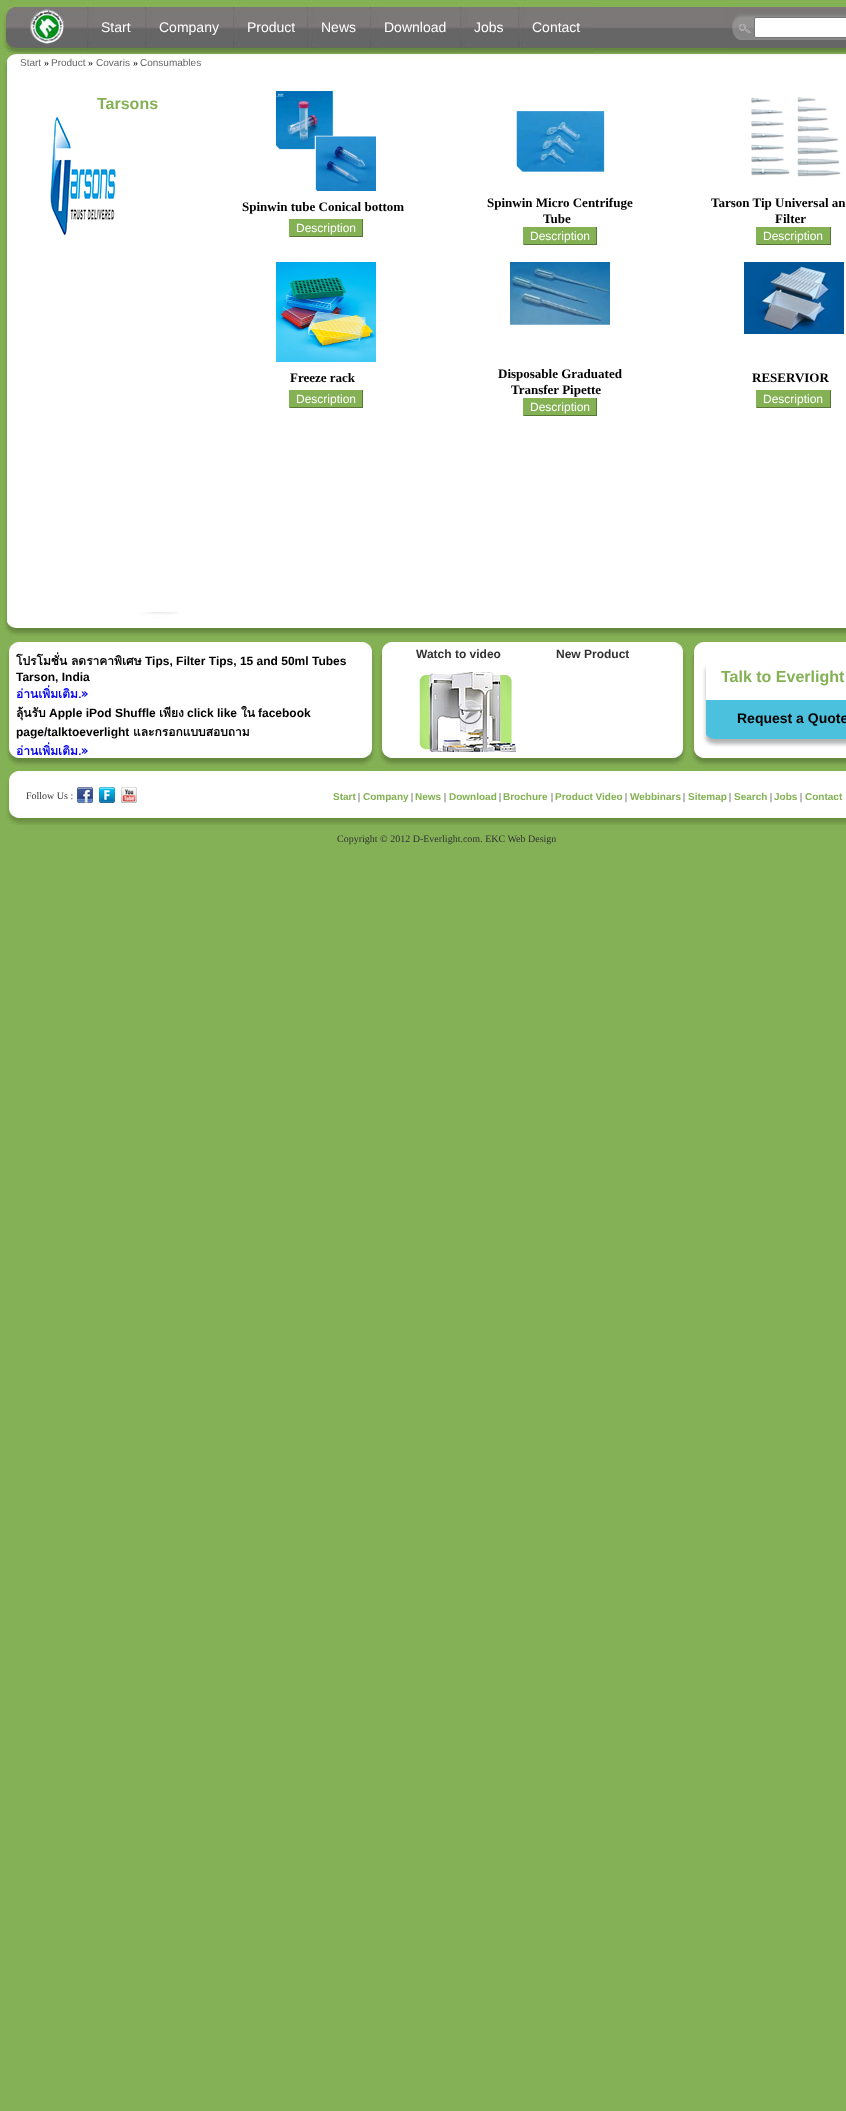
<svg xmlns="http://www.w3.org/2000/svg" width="846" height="2111">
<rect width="100%" height="100%" fill="#84b156"/>
<image x="0" y="0" width="846" height="52" href="media/1.png"/>
<image x="0" y="1" width="87" height="51" href="media/2.png"/>
<image x="0" y="52" width="846" height="16" href="media/10.png"/>
<image x="87" y="1" width="58" height="52" href="media/3.png"/>
<text x="101" y="32" style="font-family:Liberation Sans;font-size:14px;fill:#fff">Start</text>
<image x="145" y="1" width="88" height="52" href="media/4.png"/>
<text x="159" y="32" style="font-family:Liberation Sans;font-size:14px;fill:#fff">Company</text>
<image x="233" y="1" width="74" height="52" href="media/5.png"/>
<text x="247" y="32" style="font-family:Liberation Sans;font-size:14px;fill:#fff">Product</text>
<image x="307" y="1" width="63" height="52" href="media/6.png"/>
<text x="321" y="32" style="font-family:Liberation Sans;font-size:14px;fill:#fff">News</text>
<image x="370" y="1" width="89" height="52" href="media/7.png"/>
<text x="384" y="32" style="font-family:Liberation Sans;font-size:14px;fill:#fff">Download</text>
<image x="460" y="1" width="58" height="52" href="media/3.png"/>
<text x="474" y="32" style="font-family:Liberation Sans;font-size:14px;fill:#fff">Jobs</text>
<image x="518" y="1" width="76" height="52" href="media/8.png"/>
<text x="532" y="32" style="font-family:Liberation Sans;font-size:14px;fill:#fff">Contact</text>
<image x="724" y="7" width="122" height="45" href="media/9.png"/>
<rect x="754.5" y="17.5" width="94" height="20" rx="1.5" fill="#fff" stroke="#767676"/>
<text x="20" y="66" style="font-family:Liberation Sans;font-size:10px;fill:#666">Start</text>
<text x="44" y="66" style="font-family:Liberation Serif;font-size:10px;fill:#000">»</text>
<text x="51" y="66" style="font-family:Liberation Sans;font-size:10px;fill:#666">Product</text>
<text x="88" y="66" style="font-family:Liberation Serif;font-size:10px;fill:#000">»</text>
<text x="96" y="66" style="font-family:Liberation Sans;font-size:10px;fill:#666">Covaris</text>
<text x="133" y="66" style="font-family:Liberation Serif;font-size:10px;fill:#000">»</text>
<text x="140" y="66" style="font-family:Liberation Sans;font-size:10px;fill:#666">Consumables</text>
<image x="0" y="68" width="846" height="544" href="media/11.png"/>
<text x="97" y="109" style="font-family:Liberation Sans;font-size:16px;font-weight:bold;fill:#84b154">Tarsons</text>
<image x="50" y="117" width="66" height="118" href="media/12.png"/>
<image x="276" y="91" width="100" height="100" href="media/13.png"/>
<text x="242" y="211" style="font-family:Liberation Serif;font-size:13px;font-weight:bold;fill:#000">Spinwin tube Conical bottom</text>
<rect x="290" y="219" width="72" height="17" fill="#84b154"/>
<rect x="362" y="219" width="1" height="18" fill="#587638"/>
<rect x="289" y="236" width="74" height="1" fill="#587638"/>
<rect x="289" y="219" width="1" height="18" fill="#84b154"/>
<text x="296" y="232" style="font-family:Liberation Sans;font-size:12px;fill:#fff">Description</text>
<image x="516" y="111" width="89" height="61" href="media/14.png"/>
<text x="487" y="207" style="font-family:Liberation Serif;font-size:13px;font-weight:bold;fill:#000">Spinwin Micro Centrifuge</text>
<text x="543" y="223" style="font-family:Liberation Serif;font-size:13px;font-weight:bold;fill:#000">Tube</text>
<rect x="524" y="227" width="72" height="17" fill="#84b154"/>
<rect x="596" y="227" width="1" height="18" fill="#587638"/>
<rect x="523" y="244" width="74" height="1" fill="#587638"/>
<rect x="523" y="227" width="1" height="18" fill="#84b154"/>
<text x="530" y="240" style="font-family:Liberation Sans;font-size:12px;fill:#fff">Description</text>
<image x="751" y="97" width="90" height="80" href="media/15.png"/>
<text x="711" y="207" style="font-family:Liberation Serif;font-size:13px;font-weight:bold;fill:#000">Tarson Tip Universal an</text>
<text x="775" y="223" style="font-family:Liberation Serif;font-size:13px;font-weight:bold;fill:#000">Filter</text>
<rect x="757" y="227" width="73" height="17" fill="#84b154"/>
<rect x="830" y="227" width="1" height="18" fill="#587638"/>
<rect x="756" y="244" width="75" height="1" fill="#587638"/>
<rect x="756" y="227" width="1" height="18" fill="#84b154"/>
<text x="763" y="240" style="font-family:Liberation Sans;font-size:12px;fill:#fff">Description</text>
<image x="276" y="262" width="100" height="100" href="media/16.png"/>
<text x="290" y="382" style="font-family:Liberation Serif;font-size:13px;font-weight:bold;fill:#000">Freeze rack</text>
<rect x="290" y="390" width="72" height="17" fill="#84b154"/>
<rect x="362" y="390" width="1" height="18" fill="#587638"/>
<rect x="289" y="407" width="74" height="1" fill="#587638"/>
<rect x="289" y="390" width="1" height="18" fill="#84b154"/>
<text x="296" y="403" style="font-family:Liberation Sans;font-size:12px;fill:#fff">Description</text>
<image x="510" y="262" width="100" height="63" href="media/17.png"/>
<text x="498" y="378" style="font-family:Liberation Serif;font-size:13px;font-weight:bold;fill:#000">Disposable Graduated</text>
<text x="511" y="394" style="font-family:Liberation Serif;font-size:13px;font-weight:bold;fill:#000">Transfer Pipette</text>
<rect x="524" y="398" width="72" height="17" fill="#84b154"/>
<rect x="596" y="398" width="1" height="18" fill="#587638"/>
<rect x="523" y="415" width="74" height="1" fill="#587638"/>
<rect x="523" y="398" width="1" height="18" fill="#84b154"/>
<text x="530" y="411" style="font-family:Liberation Sans;font-size:12px;fill:#fff">Description</text>
<image x="744" y="262" width="100" height="72" href="media/18.png"/>
<text x="752" y="382" style="font-family:Liberation Serif;font-size:13px;font-weight:bold;fill:#000">RESERVIOR</text>
<rect x="757" y="390" width="73" height="17" fill="#84b154"/>
<rect x="830" y="390" width="1" height="18" fill="#587638"/>
<rect x="756" y="407" width="75" height="1" fill="#587638"/>
<rect x="756" y="390" width="1" height="18" fill="#84b154"/>
<text x="763" y="403" style="font-family:Liberation Sans;font-size:12px;fill:#fff">Description</text>
<image x="0" y="612" width="846" height="24" href="media/19.png"/>
<image x="6" y="642" width="840" height="116" href="media/20.png"/>
<text x="16" y="665" style="font-family:Loma;font-size:12px;font-weight:bold;fill:#000">โปรโมชั่น</text>
<text x="71" y="665" style="font-family:Loma;font-size:12px;font-weight:bold;fill:#000">ลดราคาพิเศษ</text>
<text x="145" y="665" style="font-family:Liberation Sans;font-size:12px;font-weight:bold;fill:#000">Tips, Filter Tips, 15 and 50ml Tubes</text>
<text x="16" y="681" style="font-family:Liberation Sans;font-size:12px;font-weight:bold;fill:#000">Tarson, India</text>
<text x="16" y="698" style="font-family:Loma;font-size:12px;font-weight:bold;fill:#00e">อ่านเพิ่มเติม.»</text>
<text x="16" y="717" style="font-family:Loma;font-size:12px;font-weight:bold;fill:#000">ลุ้นรับ</text>
<text x="49" y="717" style="font-family:Liberation Sans;font-size:12px;font-weight:bold;fill:#000">Apple iPod Shuffle</text>
<text x="159" y="717" style="font-family:Loma;font-size:12px;font-weight:bold;fill:#000">เพียง</text>
<text x="187" y="717" style="font-family:Liberation Sans;font-size:12px;font-weight:bold;fill:#000">click like</text>
<text x="241" y="717" style="font-family:Loma;font-size:12px;font-weight:bold;fill:#000">ใน</text>
<text x="258" y="717" style="font-family:Liberation Sans;font-size:12px;font-weight:bold;fill:#000">facebook</text>
<text x="16" y="736" style="font-family:Liberation Sans;font-size:12px;font-weight:bold;fill:#000">page/talktoeverlight</text>
<text x="133" y="736" style="font-family:Loma;font-size:12px;font-weight:bold;fill:#000">และกรอกแบบสอบถาม</text>
<text x="16" y="755" style="font-family:Loma;font-size:12px;font-weight:bold;fill:#00e">อ่านเพิ่มเติม.»</text>
<text x="416" y="658" style="font-family:Liberation Sans;font-size:12px;font-weight:bold;fill:#333">Watch to video</text>
<text x="556" y="658" style="font-family:Liberation Sans;font-size:12px;font-weight:bold;fill:#333">New Product</text>
<image x="699" y="648" width="147" height="99" href="media/21.png"/>
<text x="721" y="682" style="font-family:Liberation Sans;font-size:16px;font-weight:bold;fill:#84b154">Talk to Everlight</text>
<text x="737" y="723" style="font-family:Liberation Sans;font-size:14px;font-weight:bold;fill:#000">Request a Quote</text>
<image x="416" y="672" width="100" height="80" href="media/22.png"/>
<image x="6" y="758" width="840" height="67" href="media/23.png"/>
<text x="26" y="799" style="font-family:Liberation Serif;font-size:10px;fill:#333">Follow Us :</text>
<image x="77" y="787" width="16" height="16" href="media/24.png"/>
<image x="99" y="787" width="16" height="16" href="media/25.png"/>
<image x="121" y="787" width="16" height="16" href="media/26.png"/>
<text x="333" y="800" style="font-family:Liberation Sans;font-size:10px;font-weight:bold;fill:#84b154">Start</text>
<text x="358" y="800" style="font-family:Liberation Serif;font-size:10px;fill:#000">|</text>
<text x="363" y="800" style="font-family:Liberation Sans;font-size:10px;font-weight:bold;fill:#84b154">Company</text>
<text x="411" y="800" style="font-family:Liberation Serif;font-size:10px;fill:#000">|</text>
<text x="415" y="800" style="font-family:Liberation Sans;font-size:10px;font-weight:bold;fill:#84b154">News</text>
<text x="444" y="800" style="font-family:Liberation Serif;font-size:10px;fill:#000">|</text>
<text x="449" y="800" style="font-family:Liberation Sans;font-size:10px;font-weight:bold;fill:#84b154">Download</text>
<text x="499" y="800" style="font-family:Liberation Serif;font-size:10px;fill:#000">|</text>
<text x="503" y="800" style="font-family:Liberation Sans;font-size:10px;font-weight:bold;fill:#84b154">Brochure</text>
<text x="551" y="800" style="font-family:Liberation Serif;font-size:10px;fill:#000">|</text>
<text x="555" y="800" style="font-family:Liberation Sans;font-size:10px;font-weight:bold;fill:#84b154">Product Video</text>
<text x="625" y="800" style="font-family:Liberation Serif;font-size:10px;fill:#000">|</text>
<text x="630" y="800" style="font-family:Liberation Sans;font-size:10px;font-weight:bold;fill:#84b154">Webbinars</text>
<text x="683" y="800" style="font-family:Liberation Serif;font-size:10px;fill:#000">|</text>
<text x="688" y="800" style="font-family:Liberation Sans;font-size:10px;font-weight:bold;fill:#84b154">Sitemap</text>
<text x="729" y="800" style="font-family:Liberation Serif;font-size:10px;fill:#000">|</text>
<text x="734" y="800" style="font-family:Liberation Sans;font-size:10px;font-weight:bold;fill:#84b154">Search</text>
<text x="770" y="800" style="font-family:Liberation Serif;font-size:10px;fill:#000">|</text>
<text x="774" y="800" style="font-family:Liberation Sans;font-size:10px;font-weight:bold;fill:#84b154">Jobs</text>
<text x="800" y="800" style="font-family:Liberation Serif;font-size:10px;fill:#000">|</text>
<text x="805" y="800" style="font-family:Liberation Sans;font-size:10px;font-weight:bold;fill:#84b154">Contact</text>
<text x="337" y="842" style="font-family:Liberation Serif;font-size:10px;fill:#333">Copyright © 2012 D-Everlight.com. EKC Web Design</text>
</svg>
